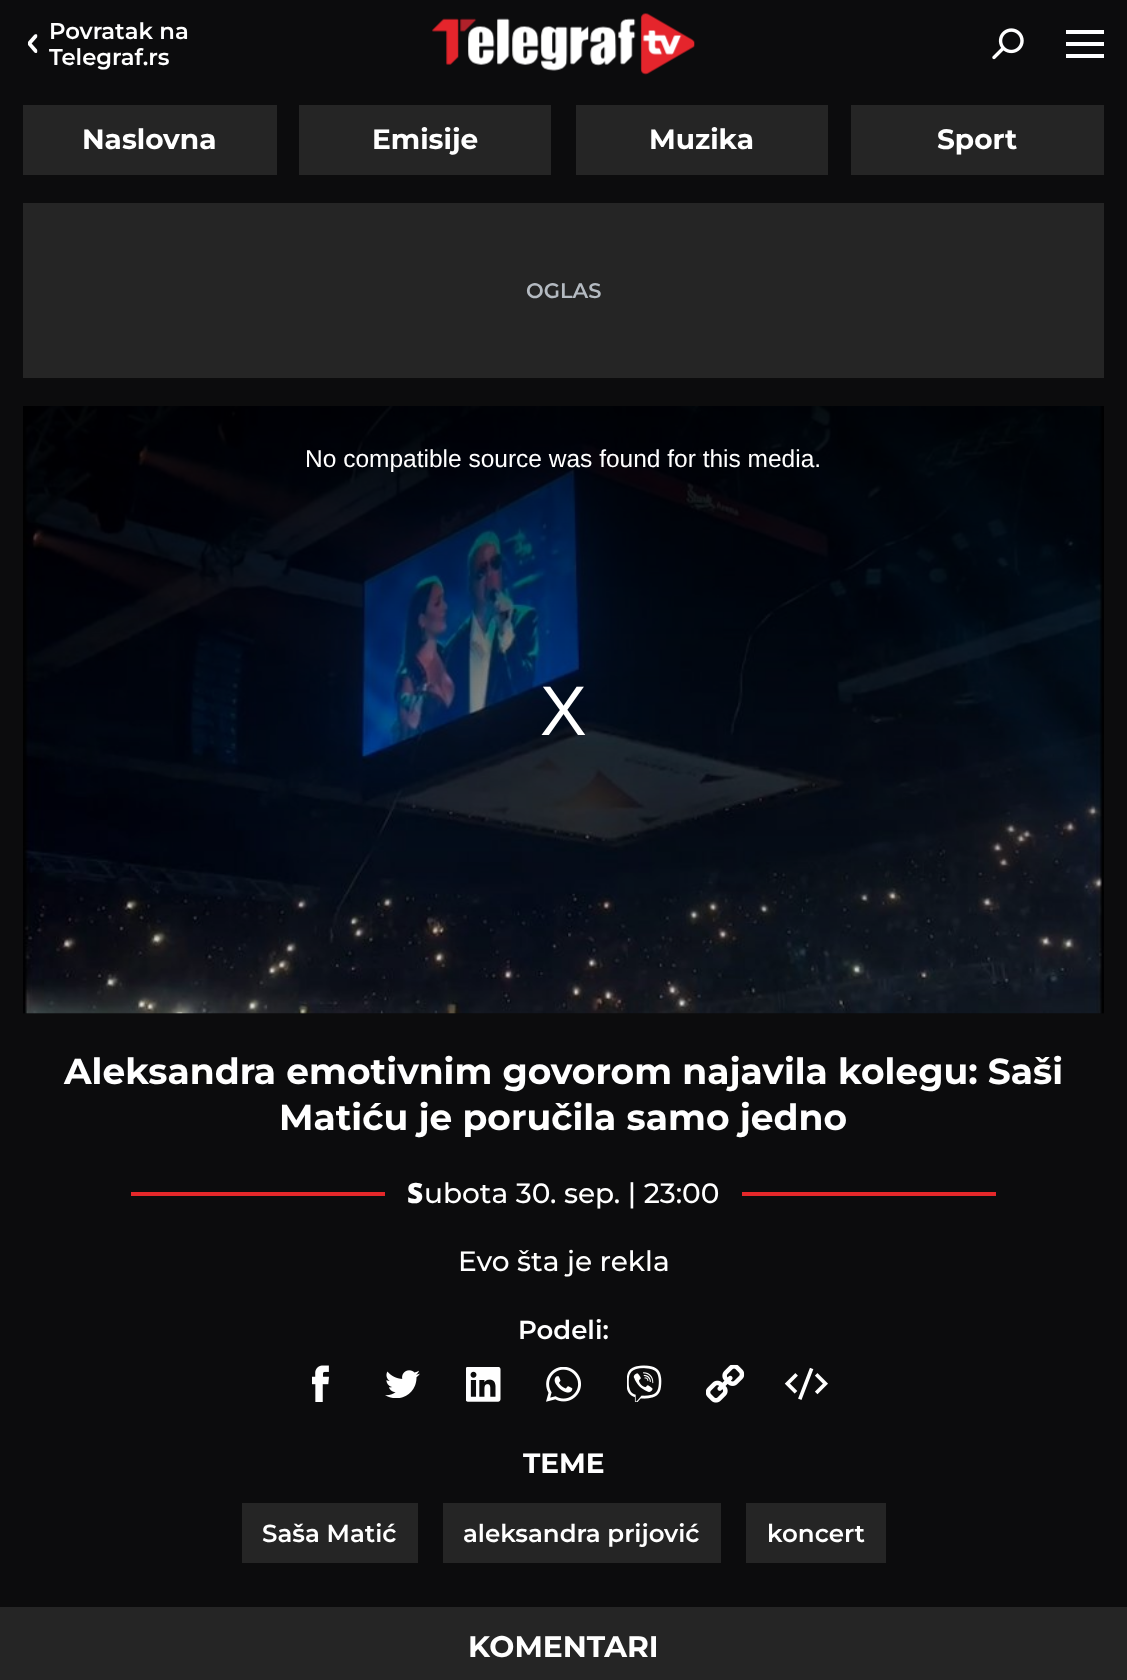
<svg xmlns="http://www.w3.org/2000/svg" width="1127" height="1680">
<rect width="100%" height="100%" fill="#0c0c0d"/>
<text x="49" y="39" style="font-family:Montserrat;font-size:22.75px;font-weight:600;fill:#fff">Povratak na</text>
<image x="27" y="34" width="11" height="19" href="media/1.png"/>
<text x="49" y="65" style="font-family:Montserrat;font-size:22.75px;font-weight:600;fill:#fff">Telegraf.rs</text>
<image x="432" y="13" width="263" height="62" href="media/2.png"/>
<image x="992" y="28" width="32" height="32" href="media/3.png"/>
<rect x="1066" y="30" width="38" height="4" fill="#fff"/>
<rect x="1066" y="42" width="38" height="4" fill="#fff"/>
<rect x="1066" y="54" width="38" height="4" fill="#fff"/>
<rect x="23" y="105" width="254" height="70" fill="#252525"/>
<text x="82" y="149" style="font-family:Montserrat;font-size:28px;font-weight:bold;fill:#fff">Naslovna</text>
<rect x="299" y="105" width="252" height="70" fill="#252525"/>
<text x="372" y="149" style="font-family:Montserrat;font-size:28px;font-weight:bold;fill:#fff">Emisije</text>
<rect x="576" y="105" width="252" height="70" fill="#252525"/>
<text x="649" y="149" style="font-family:Montserrat;font-size:28px;font-weight:bold;fill:#fff">Muzika</text>
<rect x="851" y="105" width="253" height="70" fill="#252525"/>
<text x="937" y="149" style="font-family:Montserrat;font-size:28px;font-weight:bold;fill:#fff">Sport</text>
<rect x="23" y="203" width="1081" height="175" fill="#252525"/>
<text x="526" y="298" style="font-family:Montserrat;font-size:21px;font-weight:600;fill:#b4bac1">OGLAS</text>
<image x="23" y="1013" width="1081" height="1" href="media/5.png"/>
<image x="23" y="406" width="1081" height="608" href="media/4.png"/>
<text x="305" y="467" style="font-family:Liberation Sans;font-size:24.5px;fill:#fff">No compatible source was found for this media.</text>
<text x="540" y="735" style="font-family:Liberation Sans;font-size:70px;fill:#fff">X</text>
<text x="64" y="1084" style="font-family:Montserrat;font-size:36.05px;font-weight:bold;fill:#fff">Aleksandra emotivnim govorom najavila kolegu: Saši</text>
<text x="279" y="1130" style="font-family:Montserrat;font-size:36.05px;font-weight:bold;fill:#fff">Matiću je poručila samo jedno</text>
<rect x="131" y="1192" width="865" height="4" fill="#e5282a"/>
<rect x="385" y="1192" width="357" height="4" fill="#0c0c0d"/>
<text x="407" y="1203" style="font-family:Noto Sans;font-size:28px;font-weight:900;fill:#fff">S</text>
<text x="424" y="1203" style="font-family:Montserrat;font-size:28px;font-weight:500;fill:#fff">ubota 30. sep. | 23:00</text>
<text x="458" y="1271" style="font-family:Montserrat;font-size:28px;font-weight:500;fill:#fff">Evo šta je rekla</text>
<text x="518" y="1339" style="font-family:Montserrat;font-size:26px;font-weight:600;fill:#fff">Podeli:</text>
<image x="312" y="1365" width="17" height="37" href="media/6.png"/>
<image x="385" y="1370" width="35" height="28" href="media/7.png"/>
<image x="466" y="1367" width="35" height="35" href="media/8.png"/>
<image x="546" y="1367" width="35" height="35" href="media/9.png"/>
<image x="627" y="1365" width="35" height="37" href="media/10.png"/>
<image x="706" y="1364" width="39" height="39" href="media/11.png"/>
<image x="784" y="1367" width="44" height="33" href="media/12.png"/>
<text x="523" y="1473" style="font-family:Montserrat;font-size:28px;font-weight:bold;fill:#fff">TEME</text>
<rect x="242" y="1503" width="176" height="60" fill="#252525"/>
<text x="262" y="1542" style="font-family:Montserrat;font-size:24.5px;font-weight:600;fill:#fff">Saša Matić</text>
<rect x="443" y="1503" width="278" height="60" fill="#252525"/>
<text x="463" y="1542" style="font-family:Montserrat;font-size:24.5px;font-weight:600;fill:#fff">aleksandra prijović</text>
<rect x="746" y="1503" width="140" height="60" fill="#252525"/>
<text x="767" y="1542" style="font-family:Montserrat;font-size:24.5px;font-weight:600;fill:#fff">koncert</text>
<rect y="1607" width="1127" height="73" fill="#252525"/>
<text x="468" y="1657" style="font-family:Montserrat;font-size:29.75px;font-weight:bold;fill:#fff">KOMENTARI</text>
</svg>
